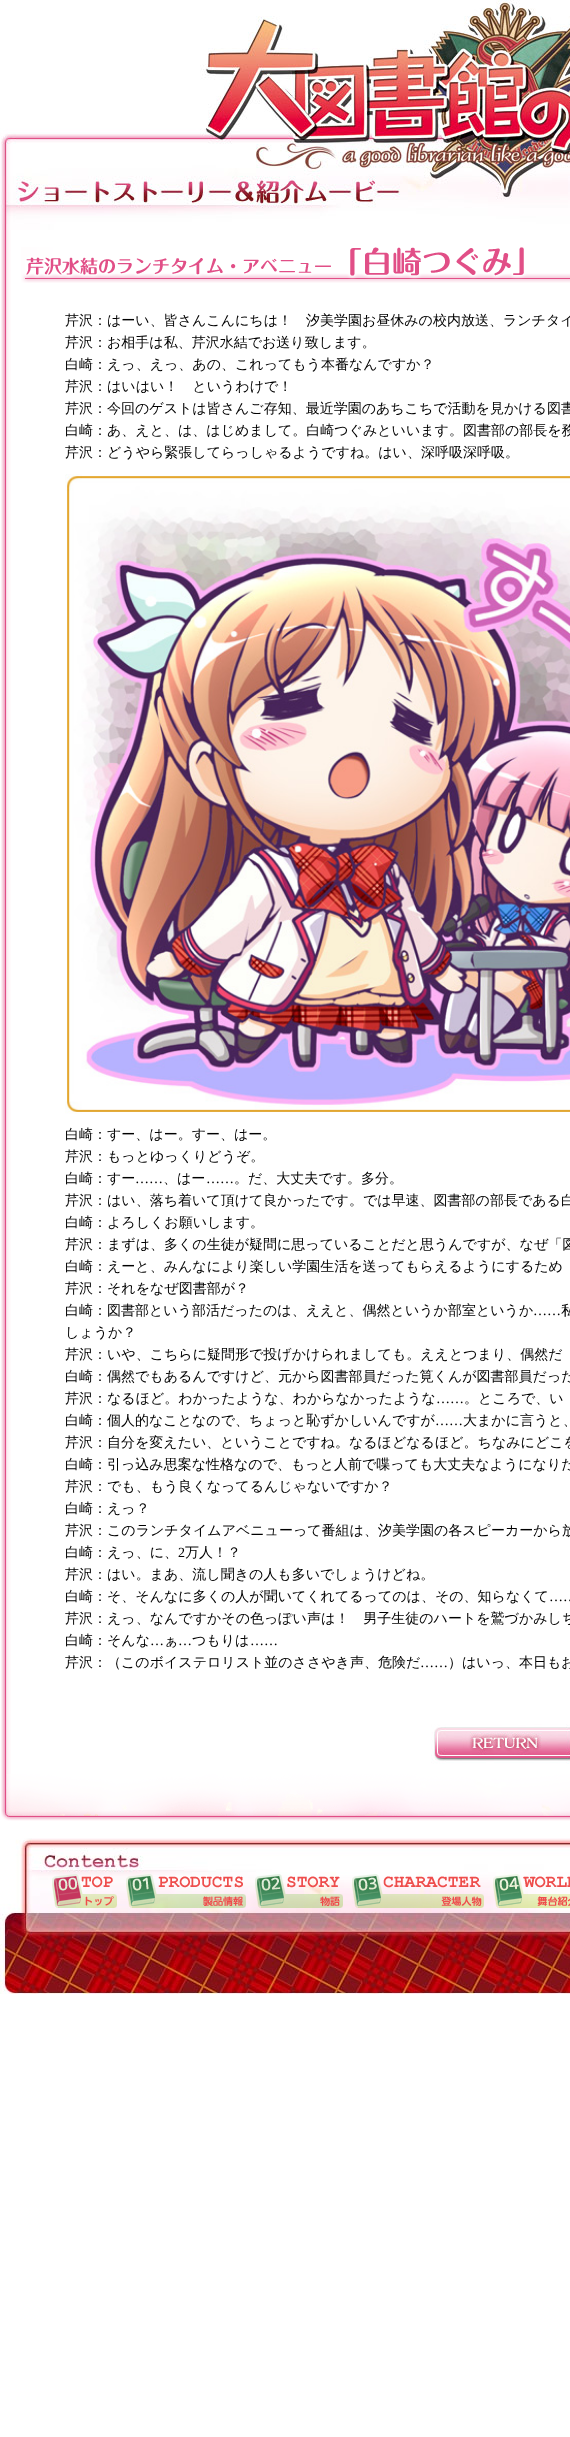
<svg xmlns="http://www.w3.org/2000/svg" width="570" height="2437">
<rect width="100%" height="100%" fill="#fff"/>
<image x="0" y="0" width="570" height="230" href="media/1.png"/>
<image x="1" y="230" width="10" height="1544" href="media/2.png"/>
<image x="21" y="247" width="549" height="36" href="media/3.png"/>
<text x="65" y="325" style="font-family:WenQuanYi Zen Hei;font-size:14px;font-weight:500;fill:#000">芹沢：はーい、皆さんこんにちは！　汐美学園お昼休みの校内放送、ランチタイ</text>
<text x="65" y="347" style="font-family:WenQuanYi Zen Hei;font-size:14px;font-weight:500;fill:#000">芹沢：お相手は私、芹沢水結でお送り致します。</text>
<text x="65" y="369" style="font-family:WenQuanYi Zen Hei;font-size:14px;font-weight:500;fill:#000">白崎：えっ、えっ、あの、これってもう本番なんですか？</text>
<text x="65" y="391" style="font-family:WenQuanYi Zen Hei;font-size:14px;font-weight:500;fill:#000">芹沢：はいはい！　というわけで！</text>
<text x="65" y="413" style="font-family:WenQuanYi Zen Hei;font-size:14px;font-weight:500;fill:#000">芹沢：今回のゲストは皆さんご存知、最近学園のあちこちで活動を見かける図書</text>
<text x="65" y="435" style="font-family:WenQuanYi Zen Hei;font-size:14px;font-weight:500;fill:#000">白崎：あ、えと、は、はじめまして。白崎つぐみといいます。図書部の部長を務</text>
<text x="65" y="457" style="font-family:WenQuanYi Zen Hei;font-size:14px;font-weight:500;fill:#000">芹沢：どうやら緊張してらっしゃるようですね。はい、深呼吸深呼吸。</text>
<image x="65" y="474" width="505" height="640" href="media/4.png"/>
<text x="65" y="1139" style="font-family:WenQuanYi Zen Hei;font-size:14px;font-weight:500;fill:#000">白崎：すー、はー。すー、はー。</text>
<text x="65" y="1161" style="font-family:WenQuanYi Zen Hei;font-size:14px;font-weight:500;fill:#000">芹沢：もっとゆっくりどうぞ。</text>
<text x="65" y="1183" style="font-family:WenQuanYi Zen Hei;font-size:14px;font-weight:500;fill:#000">白崎：すー</text>
<text x="135" y="1183" style="font-family:Liberation Serif;font-size:14px;fill:#000">……</text>
<text x="163" y="1183" style="font-family:WenQuanYi Zen Hei;font-size:14px;font-weight:500;fill:#000">、はー</text>
<text x="206" y="1183" style="font-family:Liberation Serif;font-size:14px;fill:#000">……</text>
<text x="234" y="1183" style="font-family:WenQuanYi Zen Hei;font-size:14px;font-weight:500;fill:#000">。だ、大丈夫です。多分。</text>
<text x="65" y="1205" style="font-family:WenQuanYi Zen Hei;font-size:14px;font-weight:500;fill:#000">芹沢：はい、落ち着いて頂けて良かったです。では早速、図書部の部長である白</text>
<text x="65" y="1227" style="font-family:WenQuanYi Zen Hei;font-size:14px;font-weight:500;fill:#000">白崎：よろしくお願いします。</text>
<text x="65" y="1249" style="font-family:WenQuanYi Zen Hei;font-size:14px;font-weight:500;fill:#000">芹沢：まずは、多くの生徒が疑問に思っていることだと思うんですが、なぜ「図</text>
<text x="65" y="1271" style="font-family:WenQuanYi Zen Hei;font-size:14px;font-weight:500;fill:#000">白崎：えーと、みんなにより楽しい学園生活を送ってもらえるようにするため</text>
<text x="65" y="1293" style="font-family:WenQuanYi Zen Hei;font-size:14px;font-weight:500;fill:#000">芹沢：それをなぜ図書部が？</text>
<text x="65" y="1315" style="font-family:WenQuanYi Zen Hei;font-size:14px;font-weight:500;fill:#000">白崎：図書部という部活だったのは、ええと、偶然というか部室というか</text>
<text x="533" y="1315" style="font-family:Liberation Serif;font-size:14px;fill:#000">……</text>
<text x="561" y="1315" style="font-family:WenQuanYi Zen Hei;font-size:14px;font-weight:500;fill:#000">私</text>
<text x="65" y="1337" style="font-family:WenQuanYi Zen Hei;font-size:14px;font-weight:500;fill:#000">しょうか？</text>
<text x="65" y="1359" style="font-family:WenQuanYi Zen Hei;font-size:14px;font-weight:500;fill:#000">芹沢：いや、こちらに疑問形で投げかけられましても。ええとつまり、偶然だ</text>
<text x="65" y="1381" style="font-family:WenQuanYi Zen Hei;font-size:14px;font-weight:500;fill:#000">白崎：偶然でもあるんですけど、元から図書部員だった筧くんが図書部員だった</text>
<text x="65" y="1403" style="font-family:WenQuanYi Zen Hei;font-size:14px;font-weight:500;fill:#000">芹沢：なるほど。わかったような、わからなかったような</text>
<text x="436" y="1403" style="font-family:Liberation Serif;font-size:14px;fill:#000">……</text>
<text x="464" y="1403" style="font-family:WenQuanYi Zen Hei;font-size:14px;font-weight:500;fill:#000">。ところで、い</text>
<text x="65" y="1425" style="font-family:WenQuanYi Zen Hei;font-size:14px;font-weight:500;fill:#000">白崎：個人的なことなので、ちょっと恥ずかしいんですが</text>
<text x="435" y="1425" style="font-family:Liberation Serif;font-size:14px;fill:#000">……</text>
<text x="463" y="1425" style="font-family:WenQuanYi Zen Hei;font-size:14px;font-weight:500;fill:#000">大まかに言うと、</text>
<text x="65" y="1447" style="font-family:WenQuanYi Zen Hei;font-size:14px;font-weight:500;fill:#000">芹沢：自分を変えたい、ということですね。なるほどなるほど。ちなみにどこを</text>
<text x="65" y="1469" style="font-family:WenQuanYi Zen Hei;font-size:14px;font-weight:500;fill:#000">白崎：引っ込み思案な性格なので、もっと人前で喋っても大丈夫なようになりた</text>
<text x="65" y="1491" style="font-family:WenQuanYi Zen Hei;font-size:14px;font-weight:500;fill:#000">芹沢：でも、もう良くなってるんじゃないですか？</text>
<text x="65" y="1513" style="font-family:WenQuanYi Zen Hei;font-size:14px;font-weight:500;fill:#000">白崎：えっ？</text>
<text x="65" y="1535" style="font-family:WenQuanYi Zen Hei;font-size:14px;font-weight:500;fill:#000">芹沢：このランチタイムアベニューって番組は、汐美学園の各スピーカーから放</text>
<text x="65" y="1557" style="font-family:WenQuanYi Zen Hei;font-size:14px;font-weight:500;fill:#000">白崎：えっ、に、</text>
<text x="178" y="1557" style="font-family:Liberation Serif;font-size:14px;fill:#000">2</text>
<text x="185" y="1557" style="font-family:WenQuanYi Zen Hei;font-size:14px;font-weight:500;fill:#000">万人！？</text>
<text x="65" y="1579" style="font-family:WenQuanYi Zen Hei;font-size:14px;font-weight:500;fill:#000">芹沢：はい。まあ、流し聞きの人も多いでしょうけどね。</text>
<text x="65" y="1601" style="font-family:WenQuanYi Zen Hei;font-size:14px;font-weight:500;fill:#000">白崎：そ、そんなに多くの人が聞いてくれてるってのは、その、知らなくて</text>
<text x="549" y="1601" style="font-family:Liberation Serif;font-size:14px;fill:#000">……</text>
<text x="65" y="1623" style="font-family:WenQuanYi Zen Hei;font-size:14px;font-weight:500;fill:#000">芹沢：えっ、なんですかその色っぽい声は！　男子生徒のハートを鷲づかみしち</text>
<text x="65" y="1645" style="font-family:WenQuanYi Zen Hei;font-size:14px;font-weight:500;fill:#000">白崎：そんな</text>
<text x="150" y="1645" style="font-family:Liberation Serif;font-size:14px;fill:#000">…</text>
<text x="164" y="1645" style="font-family:WenQuanYi Zen Hei;font-size:14px;font-weight:500;fill:#000">ぁ</text>
<text x="178" y="1645" style="font-family:Liberation Serif;font-size:14px;fill:#000">…</text>
<text x="192" y="1645" style="font-family:WenQuanYi Zen Hei;font-size:14px;font-weight:500;fill:#000">つもりは</text>
<text x="250" y="1645" style="font-family:Liberation Serif;font-size:14px;fill:#000">……</text>
<text x="65" y="1667" style="font-family:WenQuanYi Zen Hei;font-size:14px;font-weight:500;fill:#000">芹沢：（このボイステロリスト並のささやき声、危険だ</text>
<text x="420" y="1667" style="font-family:Liberation Serif;font-size:14px;fill:#000">……</text>
<text x="448" y="1667" style="font-family:WenQuanYi Zen Hei;font-size:14px;font-weight:500;fill:#000">）はいっ、本日もお</text>
<image x="431" y="1724" width="139" height="40" href="media/5.png"/>
<image x="1" y="1774" width="569" height="47" href="media/6.png"/>
<image x="0" y="1838" width="570" height="156" href="media/7.png"/>
<image x="52" y="1874" width="65" height="34" href="media/8.png"/>
<image x="126" y="1874" width="120" height="34" href="media/9.png"/>
<image x="255" y="1874" width="88" height="34" href="media/10.png"/>
<image x="352" y="1874" width="132" height="34" href="media/11.png"/>
<image x="493" y="1874" width="77" height="34" href="media/12.png"/>
</svg>
